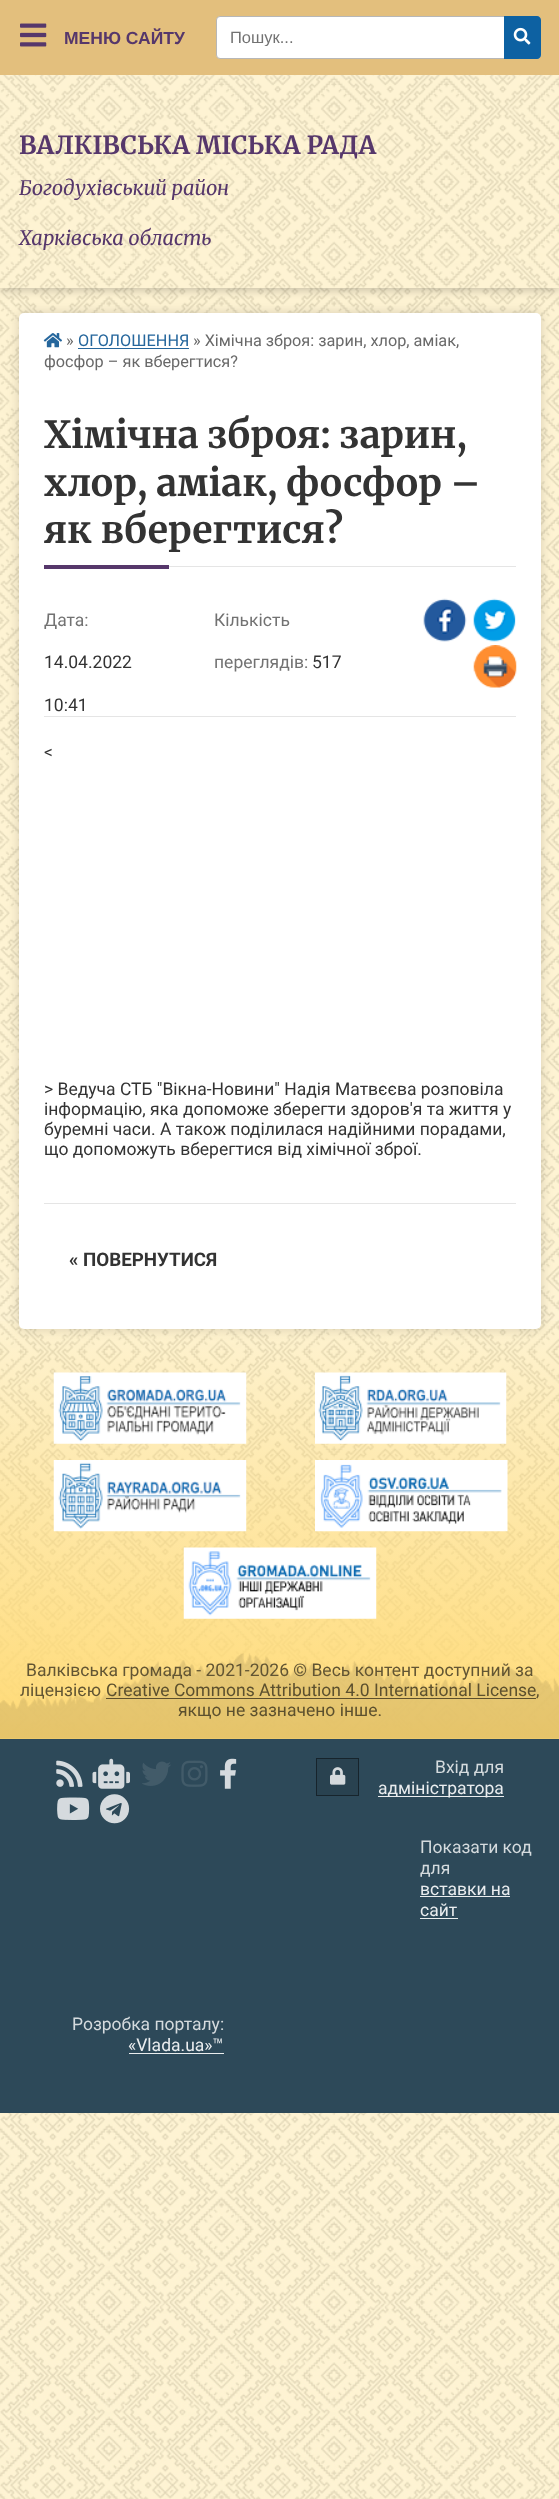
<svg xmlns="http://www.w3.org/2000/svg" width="559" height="2499">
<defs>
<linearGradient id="g1" gradientUnits="userSpaceOnUse" x1="280" y1="1310" x2="280" y2="1739"><stop offset="0" stop-color="#ffda75" stop-opacity="0"/><stop offset="1" stop-color="#ffda75"/></linearGradient>
<clipPath id="clip1"><path d="M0 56h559v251h-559zm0 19h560v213h-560z" clip-rule="evenodd"/></clipPath>
<clipPath id="clip2"><rect x="230" y="28" width="260" height="18"/></clipPath>
</defs>
<rect width="100%" height="100%" fill="#fff4cf"/>
<image x="0" y="75" width="559" height="2424" href="media/1.png"/>
<rect y="1321" width="559" height="418" fill="url(#g1)"/>
<rect x="19" y="313" width="522" height="1016" rx="5" fill="#00000026" filter="blur(6px)"/>
<rect x="19" y="313" width="522" height="1016" rx="5" fill="#fff"/>
<g clip-path="url(#clip1)">
<rect y="75" width="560" height="213" fill="#0000004d" filter="blur(6px)"/>
</g>
<rect width="559" height="75" fill="#e3bf7d"/>
<image x="20" y="23" width="27" height="24" href="media/2.png"/>
<text x="64" y="44" style="font-family:Liberation Sans;font-size:17.5px;font-weight:bold;fill:#56376b">МЕНЮ САЙТУ</text>
<image x="43" y="333" width="19" height="15" href="media/3.png"/>
<text x="66" y="346" style="font-family:Roboto;font-size:16.25px;fill:#696969">»</text>
<text x="78" y="346" style="font-family:Roboto;font-size:16.25px;fill:#25669c">ОГОЛОШЕННЯ</text>
<rect x="78" y="348" width="111" height="1" fill="#25669c"/>
<text x="193" y="346" style="font-family:Roboto;font-size:16.25px;fill:#696969">» Хімічна зброя: зарин, хлор, аміак,</text>
<text x="44" y="367" style="font-family:Roboto;font-size:16.25px;fill:#696969">фосфор – як вберегтися?</text>
<rect x="169" y="566" width="347" height="1" fill="#e5e5e5"/>
<text x="44" y="448" style="font-family:Merriweather;font-size:37.5px;font-weight:300;fill:#333">Хімічна зброя: зарин,</text>
<text x="44" y="496" style="font-family:Merriweather;font-size:37.5px;font-weight:300;fill:#333">хлор, аміак, фосфор –</text>
<text x="44" y="543" style="font-family:Merriweather;font-size:37.5px;font-weight:300;fill:#333">як вберегтися?</text>
<rect x="44" y="565" width="125" height="4" fill="#56376b"/>
<text x="44" y="626" style="font-family:Roboto;font-size:17.5px;fill:#727272">Дата:</text>
<text x="44" y="668" style="font-family:Roboto;font-size:17.5px;fill:#333">14.04.2022</text>
<text x="44" y="711" style="font-family:Roboto;font-size:17.5px;fill:#333">10:41</text>
<text x="214" y="626" style="font-family:Roboto;font-size:17.5px;fill:#727272">Кількість</text>
<text x="214" y="668" style="font-family:Roboto;font-size:17.5px;fill:#727272">переглядів:</text>
<text x="312" y="668" style="font-family:Roboto;font-size:17.5px;fill:#333">517</text>
<image x="423" y="598" width="44" height="44" href="media/4.png"/>
<image x="473" y="598" width="43" height="44" href="media/5.png"/>
<image x="473" y="645" width="44" height="43" href="media/6.png"/>
<rect x="44" y="716" width="472" height="1" fill="#e5e5e5"/>
<text x="44" y="758" style="font-family:Roboto;font-size:17.5px;fill:#333">&lt;</text>
<text x="44" y="1095" style="font-family:Roboto;font-size:17.5px;fill:#333">&gt; Ведуча СТБ "Вікна-Новини" Надія Матвєєва розповіла</text>
<text x="44" y="1115" style="font-family:Roboto;font-size:17.5px;fill:#333">інформацію, яка допоможе зберегти здоров'я та життя у</text>
<text x="44" y="1135" style="font-family:Roboto;font-size:17.5px;fill:#333">буремні часи. А також поділилася надійними порадами,</text>
<text x="44" y="1155" style="font-family:Roboto;font-size:17.5px;fill:#333">що допоможуть вберегтися від хімічної зброї.</text>
<rect x="44" y="1203" width="472" height="1" fill="#e5e5e5"/>
<text x="69" y="1266" style="font-family:Roboto;font-size:18.75px;font-weight:bold;fill:#333">« ПОВЕРНУТИСЯ</text>
<rect x="216.5" y="16.5" width="324" height="42" rx="3.5" fill="#fff" stroke="#b7b7b7"/>
<g clip-path="url(#clip2)">
<text x="230" y="43" style="font-family:Liberation Sans;font-size:16.5px;fill:#727272">Пошук...</text>
</g>
<path d="M504 16h33c2 0 4 2 4 4v35c0 2-2 4-4 4h-33z" fill="#0d61a2"/>
<image x="513" y="27" width="18" height="18" href="media/7.png"/>
<text x="19" y="154" style="font-family:Merriweather;font-size:25px;font-weight:300;fill:#56376b">ВАЛКІВСЬКА МІСЬКА РАДА</text>
<text x="19" y="195" style="font-family:Merriweather;font-size:20px;font-weight:300;font-style:italic;fill:#56376b">Богодухівський район</text>
<text x="19" y="245" style="font-family:Merriweather;font-size:20px;font-weight:300;font-style:italic;fill:#56376b">Харківська область</text>
<image x="0" y="1653" width="559" height="86" href="media/8.png"/>
<image x="53" y="1372" width="194" height="72" href="media/9.png"/>
<image x="315" y="1372" width="192" height="72" href="media/10.png"/>
<image x="53" y="1460" width="194" height="72" href="media/11.png"/>
<image x="315" y="1460" width="193" height="72" href="media/12.png"/>
<image x="183" y="1547" width="194" height="72" href="media/13.png"/>
<text x="26" y="1676" style="font-family:Roboto;font-size:17.5px;fill:#625533">Валківська громада - 2021-2026 © Весь контент доступний за</text>
<text x="20" y="1696" style="font-family:Roboto;font-size:17.5px;fill:#625533">ліцензією</text>
<text x="106" y="1696" style="font-family:Roboto;font-size:17.5px;fill:#5c502e">Creative Commons Attribution 4.0 International License</text>
<rect x="106" y="1698" width="430" height="1" fill="#5c4f2d"/>
<text x="536" y="1696" style="font-family:Roboto;font-size:17.5px;fill:#5c502e">,</text>
<text x="178" y="1716" style="font-family:Roboto;font-size:17.5px;fill:#5c502e">якщо не зазначено інше.</text>
<rect y="1739" width="559" height="374" fill="#2d4959"/>
<image x="56" y="1760" width="27" height="27" href="media/14.png"/>
<image x="92" y="1758" width="38" height="31" href="media/15.png"/>
<image x="142" y="1761" width="29" height="25" href="media/16.png"/>
<image x="181" y="1760" width="27" height="27" href="media/17.png"/>
<image x="220" y="1758" width="17" height="31" href="media/18.png"/>
<image x="57" y="1797" width="33" height="23" href="media/19.png"/>
<image x="100" y="1794" width="30" height="30" href="media/20.png"/>
<rect x="316.5" y="1758.5" width="42" height="37" fill="#294250" stroke="#17242c"/>
<image x="330" y="1767" width="16" height="18" href="media/21.png"/>
<text x="435" y="1773" style="font-family:Roboto;font-size:17.5px;fill:#d5dbde">Вхід для</text>
<rect x="378" y="1796" width="126" height="1" fill="#eaedee"/>
<text x="378" y="1794" style="font-family:Roboto;font-size:17.5px;fill:#eaedef">адміністратора</text>
<text x="420" y="1853" style="font-family:Roboto;font-size:17.5px;fill:#d5dbde">Показати код</text>
<text x="420" y="1874" style="font-family:Roboto;font-size:17.5px;fill:#d5dbde">для</text>
<text x="420" y="1895" style="font-family:Roboto;font-size:17.5px;fill:#eaedef">вставки на</text>
<rect x="420" y="1896" width="90" height="1" fill="#eaedee"/>
<text x="420" y="1916" style="font-family:Roboto;font-size:17.5px;fill:#eaedef">сайт</text>
<rect x="420" y="1918" width="38" height="1" fill="#eaedee"/>
<text x="72" y="2030" style="font-family:Roboto;font-size:17.5px;fill:#d5dbde">Розробка порталу:</text>
<text x="128" y="2051" style="font-family:Roboto;font-size:17.5px;fill:#eaedef">«Vlada.ua»™</text>
<rect x="129" y="2053" width="95" height="1" fill="#eaedee"/>
</svg>
